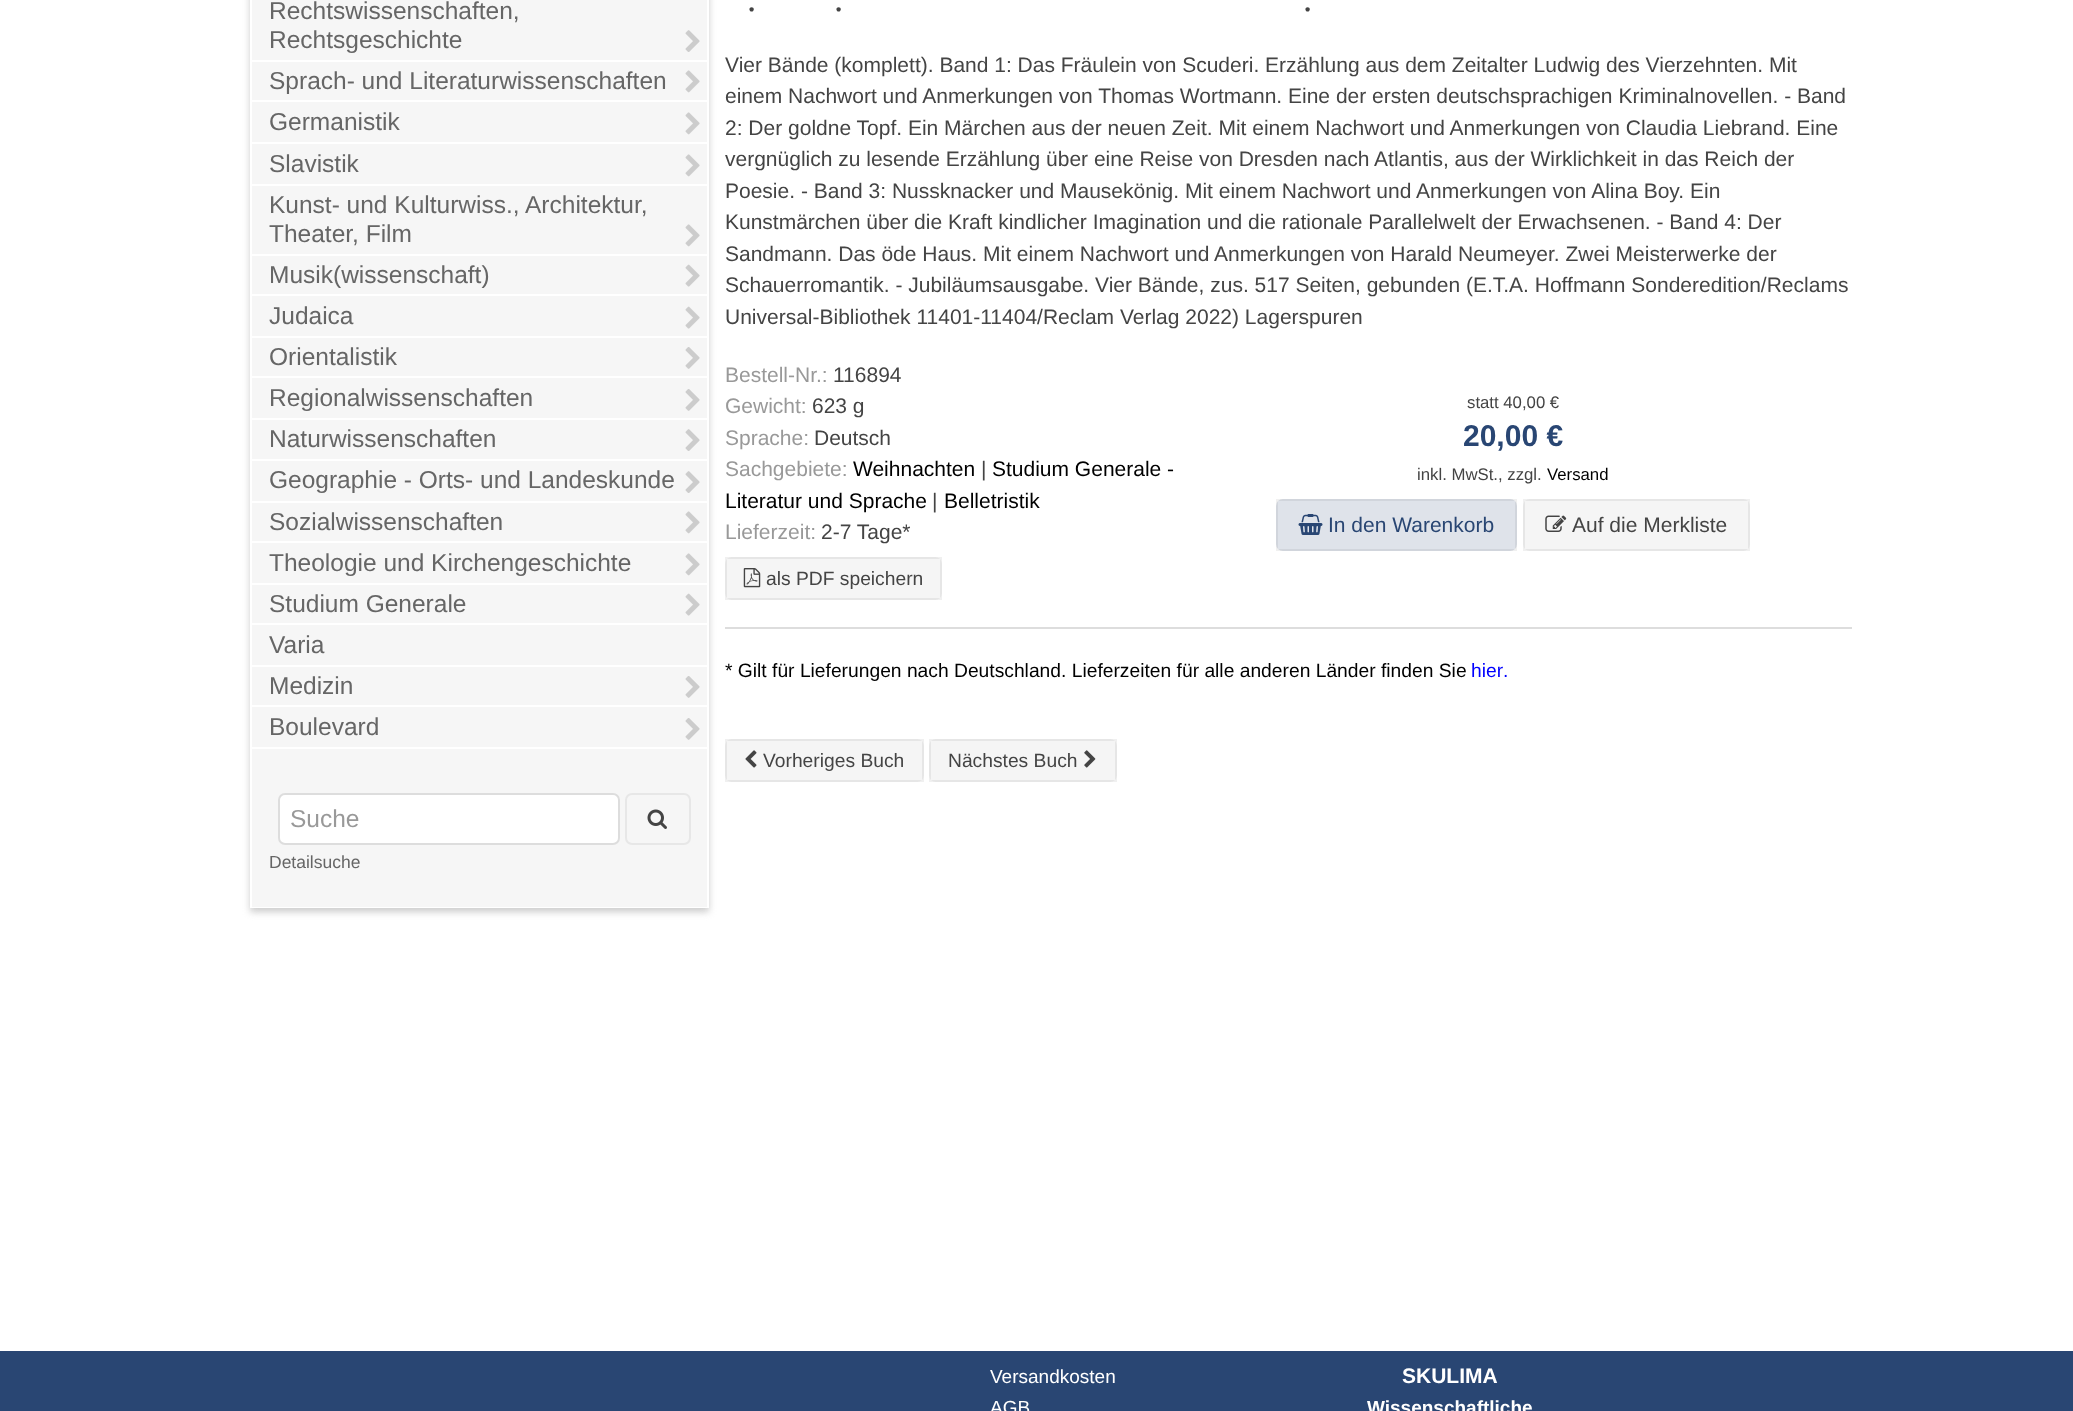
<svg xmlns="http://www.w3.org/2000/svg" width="2073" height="1411">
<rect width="100%" height="100%" fill="#fff"/>
<rect x="250" y="-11" width="459" height="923" fill="#ccc" filter="blur(3.5px)"/>
<rect x="252" width="455" height="747" fill="#f6f6f6"/>
<rect x="251" y="-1" width="457" height="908" fill="none" stroke="#fff" stroke-width="2"/>
<text x="269" y="19" style="font-family:Liberation Sans;font-size:24.5px;fill:#666">Rechtswissenschaften,</text>
<text x="269" y="48" style="font-family:Liberation Sans;font-size:24.5px;fill:#666">Rechtsgeschichte</text>
<image x="685" y="30" width="15" height="22" href="media/1.png"/>
<rect x="252" y="60" width="455" height="2" fill="#fff"/>
<text x="269" y="89" style="font-family:Liberation Sans;font-size:24.5px;fill:#666">Sprach- und Literaturwissenschaften</text>
<image x="685" y="70" width="15" height="23" href="media/2.png"/>
<rect x="252" y="100" width="455" height="2" fill="#fff"/>
<text x="269" y="130" style="font-family:Liberation Sans;font-size:24.5px;fill:#666">Germanistik</text>
<image x="685" y="112" width="15" height="23" href="media/2.png"/>
<rect x="252" y="142" width="455" height="2" fill="#fff"/>
<text x="269" y="172" style="font-family:Liberation Sans;font-size:24.5px;fill:#666">Slavistik</text>
<image x="685" y="154" width="15" height="23" href="media/2.png"/>
<rect x="252" y="184" width="455" height="2" fill="#fff"/>
<text x="269" y="213" style="font-family:Liberation Sans;font-size:24.5px;fill:#666">Kunst- und Kulturwiss., Architektur,</text>
<text x="269" y="242" style="font-family:Liberation Sans;font-size:24.5px;fill:#666">Theater, Film</text>
<image x="685" y="224" width="15" height="23" href="media/2.png"/>
<rect x="252" y="254" width="455" height="2" fill="#fff"/>
<text x="269" y="283" style="font-family:Liberation Sans;font-size:24.5px;fill:#666">Musik(wissenschaft)</text>
<image x="685" y="264" width="15" height="23" href="media/3.png"/>
<rect x="252" y="294" width="455" height="2" fill="#fff"/>
<text x="269" y="324" style="font-family:Liberation Sans;font-size:24.5px;fill:#666">Judaica</text>
<image x="685" y="306" width="15" height="23" href="media/3.png"/>
<rect x="252" y="336" width="455" height="2" fill="#fff"/>
<text x="269" y="365" style="font-family:Liberation Sans;font-size:24.5px;fill:#666">Orientalistik</text>
<image x="685" y="347" width="15" height="22" href="media/4.png"/>
<rect x="252" y="376" width="455" height="2" fill="#fff"/>
<text x="269" y="406" style="font-family:Liberation Sans;font-size:24.5px;fill:#666">Regionalwissenschaften</text>
<image x="685" y="389" width="15" height="22" href="media/4.png"/>
<rect x="252" y="418" width="455" height="2" fill="#fff"/>
<text x="269" y="447" style="font-family:Liberation Sans;font-size:24.5px;fill:#666">Naturwissenschaften</text>
<image x="685" y="429" width="15" height="22" href="media/1.png"/>
<rect x="252" y="459" width="455" height="2" fill="#fff"/>
<text x="269" y="488" style="font-family:Liberation Sans;font-size:24.5px;fill:#666">Geographie - Orts- und Landeskunde</text>
<image x="685" y="471" width="15" height="22" href="media/1.png"/>
<rect x="252" y="501" width="455" height="2" fill="#fff"/>
<text x="269" y="530" style="font-family:Liberation Sans;font-size:24.5px;fill:#666">Sozialwissenschaften</text>
<image x="685" y="511" width="15" height="23" href="media/2.png"/>
<rect x="252" y="541" width="455" height="2" fill="#fff"/>
<text x="269" y="571" style="font-family:Liberation Sans;font-size:24.5px;fill:#666">Theologie und Kirchengeschichte</text>
<image x="685" y="553" width="15" height="23" href="media/2.png"/>
<rect x="252" y="583" width="455" height="2" fill="#fff"/>
<text x="269" y="612" style="font-family:Liberation Sans;font-size:24.5px;fill:#666">Studium Generale</text>
<image x="685" y="593" width="15" height="23" href="media/3.png"/>
<rect x="252" y="623" width="455" height="2" fill="#fff"/>
<text x="269" y="653" style="font-family:Liberation Sans;font-size:24.5px;fill:#666">Varia</text>
<rect x="252" y="665" width="455" height="2" fill="#fff"/>
<text x="269" y="694" style="font-family:Liberation Sans;font-size:24.5px;fill:#666">Medizin</text>
<image x="685" y="676" width="15" height="22" href="media/4.png"/>
<rect x="252" y="705" width="455" height="2" fill="#fff"/>
<text x="269" y="735" style="font-family:Liberation Sans;font-size:24.5px;fill:#666">Boulevard</text>
<image x="685" y="718" width="15" height="22" href="media/4.png"/>
<rect x="252" y="747" width="455" height="2" fill="#fff"/>
<rect x="252" y="749" width="455" height="158" fill="#f6f6f6"/>
<rect x="279" y="794" width="340" height="50" rx="6" fill="#fff" stroke="#ddd" stroke-width="2"/>
<text x="290" y="827" style="font-family:Liberation Sans;font-size:24.5px;fill:#999">Suche</text>
<rect x="626" y="794" width="64" height="50" rx="6" fill="none" stroke="#e7e7e7" stroke-width="2"/>
<image x="647" y="809" width="20" height="20" href="media/5.png"/>
<text x="269" y="868" style="font-family:Liberation Sans;font-size:17.5px;fill:#666">Detailsuche</text>
<text x="747" y="11" style="font-family:EB Garamond;font-size:40px;fill:#444">.</text>
<text x="834" y="11" style="font-family:EB Garamond;font-size:40px;fill:#444">.</text>
<text x="1303" y="11" style="font-family:EB Garamond;font-size:40px;fill:#444">.</text>
<text x="725" y="72" style="font-family:Liberation Sans;font-size:21px;fill:#444">Vier Bände (komplett). Band 1: Das Fräulein von Scuderi. Erzählung aus dem Zeitalter Ludwig des Vierzehnten. Mit</text>
<text x="725" y="103" style="font-family:Liberation Sans;font-size:21px;fill:#444">einem Nachwort und Anmerkungen von Thomas Wortmann. Eine der ersten deutschsprachigen Kriminalnovellen. - Band</text>
<text x="725" y="135" style="font-family:Liberation Sans;font-size:21px;fill:#444">2: Der goldne Topf. Ein Märchen aus der neuen Zeit. Mit einem Nachwort und Anmerkungen von Claudia Liebrand. Eine</text>
<text x="725" y="166" style="font-family:Liberation Sans;font-size:21px;fill:#444">vergnüglich zu lesende Erzählung über eine Reise von Dresden nach Atlantis, aus der Wirklichkeit in das Reich der</text>
<text x="725" y="198" style="font-family:Liberation Sans;font-size:21px;fill:#444">Poesie. - Band 3: Nussknacker und Mausekönig. Mit einem Nachwort und Anmerkungen von Alina Boy. Ein</text>
<text x="725" y="229" style="font-family:Liberation Sans;font-size:21px;fill:#444">Kunstmärchen über die Kraft kindlicher Imagination und die rationale Parallelwelt der Erwachsenen. - Band 4: Der</text>
<text x="725" y="261" style="font-family:Liberation Sans;font-size:21px;fill:#444">Sandmann. Das öde Haus. Mit einem Nachwort und Anmerkungen von Harald Neumeyer. Zwei Meisterwerke der</text>
<text x="725" y="292" style="font-family:Liberation Sans;font-size:21px;fill:#444">Schauerromantik. - Jubiläumsausgabe. Vier Bände, zus. 517 Seiten, gebunden (E.T.A. Hoffmann Sonderedition/Reclams</text>
<text x="725" y="324" style="font-family:Liberation Sans;font-size:21px;fill:#444">Universal-Bibliothek 11401-11404/Reclam Verlag 2022) Lagerspuren</text>
<text x="725" y="382" style="font-family:Liberation Sans;font-size:21px;fill:#999">Bestell-Nr.:</text>
<text x="833" y="382" style="font-family:Liberation Sans;font-size:21px;fill:#444">116894</text>
<text x="725" y="413" style="font-family:Liberation Sans;font-size:21px;fill:#999">Gewicht:</text>
<text x="812" y="413" style="font-family:Liberation Sans;font-size:21px;fill:#444">623 g</text>
<text x="725" y="445" style="font-family:Liberation Sans;font-size:21px;fill:#999">Sprache:</text>
<text x="814" y="445" style="font-family:Liberation Sans;font-size:21px;fill:#444">Deutsch</text>
<text x="725" y="476" style="font-family:Liberation Sans;font-size:21px;fill:#999">Sachgebiete:</text>
<text x="853" y="476" style="font-family:Liberation Sans;font-size:21px;fill:#000">Weihnachten</text>
<text x="981" y="476" style="font-family:Liberation Sans;font-size:21px;fill:#444">|</text>
<text x="992" y="476" style="font-family:Liberation Sans;font-size:21px;fill:#000">Studium Generale -</text>
<text x="725" y="508" style="font-family:Liberation Sans;font-size:21px;fill:#000">Literatur und Sprache</text>
<text x="932" y="508" style="font-family:Liberation Sans;font-size:21px;fill:#444">|</text>
<text x="944" y="508" style="font-family:Liberation Sans;font-size:21px;fill:#000">Belletristik</text>
<text x="725" y="539" style="font-family:Liberation Sans;font-size:21px;fill:#999">Lieferzeit:</text>
<text x="821" y="539" style="font-family:Liberation Sans;font-size:21px;fill:#444">2-7 Tage*</text>
<rect x="725" y="557" width="217" height="43" rx="7" fill="#f5f5f5"/>
<rect x="726" y="558" width="215" height="41" fill="none" stroke="#0000000f" stroke-width="2"/>
<image x="743" y="568" width="18" height="20" href="media/6.png"/>
<text x="766" y="585" style="font-family:Liberation Sans;font-size:19.25px;fill:#444">als PDF speichern</text>
<text x="1467" y="408" style="font-family:Liberation Sans;font-size:16.75px;fill:#444">statt 40,00 €</text>
<text x="1463" y="446" style="font-family:Liberation Sans;font-size:30px;font-weight:bold;fill:#294673">20,00 €</text>
<text x="1417" y="480" style="font-family:Liberation Sans;font-size:16.75px;fill:#444">inkl. MwSt., zzgl.</text>
<text x="1547" y="480" style="font-family:Liberation Sans;font-size:16.75px;fill:#000">Versand</text>
<rect x="1276" y="499" width="241" height="52" rx="7" fill="#dfe3ea"/>
<rect x="1277" y="500" width="239" height="50" fill="none" stroke="#0000000f" stroke-width="2"/>
<image x="1298" y="514" width="25" height="21" href="media/7.png"/>
<text x="1328" y="532" style="font-family:Liberation Sans;font-size:21px;fill:#294673">In den Warenkorb</text>
<rect x="1523" y="499" width="227" height="52" rx="7" fill="#f5f5f5"/>
<rect x="1524" y="500" width="225" height="50" fill="none" stroke="#0000000f" stroke-width="2"/>
<image x="1545" y="515" width="22" height="17" href="media/8.png"/>
<text x="1572" y="532" style="font-family:Liberation Sans;font-size:21px;fill:#444">Auf die Merkliste</text>
<rect x="725" y="627" width="1127" height="2" fill="#ddd"/>
<text x="725" y="677" style="font-family:Liberation Sans;font-size:19.25px;fill:#000">* Gilt für Lieferungen nach Deutschland. Lieferzeiten für alle anderen Länder finden Sie</text>
<text x="1471" y="677" style="font-family:Liberation Sans;font-size:19.25px;fill:#00f">hier</text>
<text x="1503" y="677" style="font-family:Liberation Sans;font-size:19.25px;fill:#00f">.</text>
<rect x="725" y="739" width="199" height="43" rx="7" fill="#f5f5f5"/>
<rect x="726" y="740" width="197" height="41" fill="none" stroke="#0000000f" stroke-width="2"/>
<image x="745" y="750" width="12" height="18" href="media/9.png"/>
<text x="763" y="767" style="font-family:Liberation Sans;font-size:19.25px;fill:#444">Vorheriges Buch</text>
<rect x="929" y="739" width="188" height="43" rx="7" fill="#f5f5f5"/>
<rect x="930" y="740" width="186" height="41" fill="none" stroke="#0000000f" stroke-width="2"/>
<text x="948" y="767" style="font-family:Liberation Sans;font-size:19.25px;fill:#444">Nächstes Buch</text>
<image x="1084" y="750" width="12" height="18" href="media/10.png"/>
<rect y="1351" width="2073" height="60" fill="#294673"/>
<text x="990" y="1383" style="font-family:Liberation Sans;font-size:19px;fill:#fff">Versandkosten</text>
<text x="990" y="1414" style="font-family:Liberation Sans;font-size:19px;fill:#fff">AGB</text>
<text x="1402" y="1383" style="font-family:Liberation Sans;font-size:21px;font-weight:bold;fill:#fff">SKULIMA</text>
<text x="1367" y="1414" style="font-family:Liberation Sans;font-size:19px;font-weight:bold;fill:#fff">Wissenschaftliche</text>
</svg>
